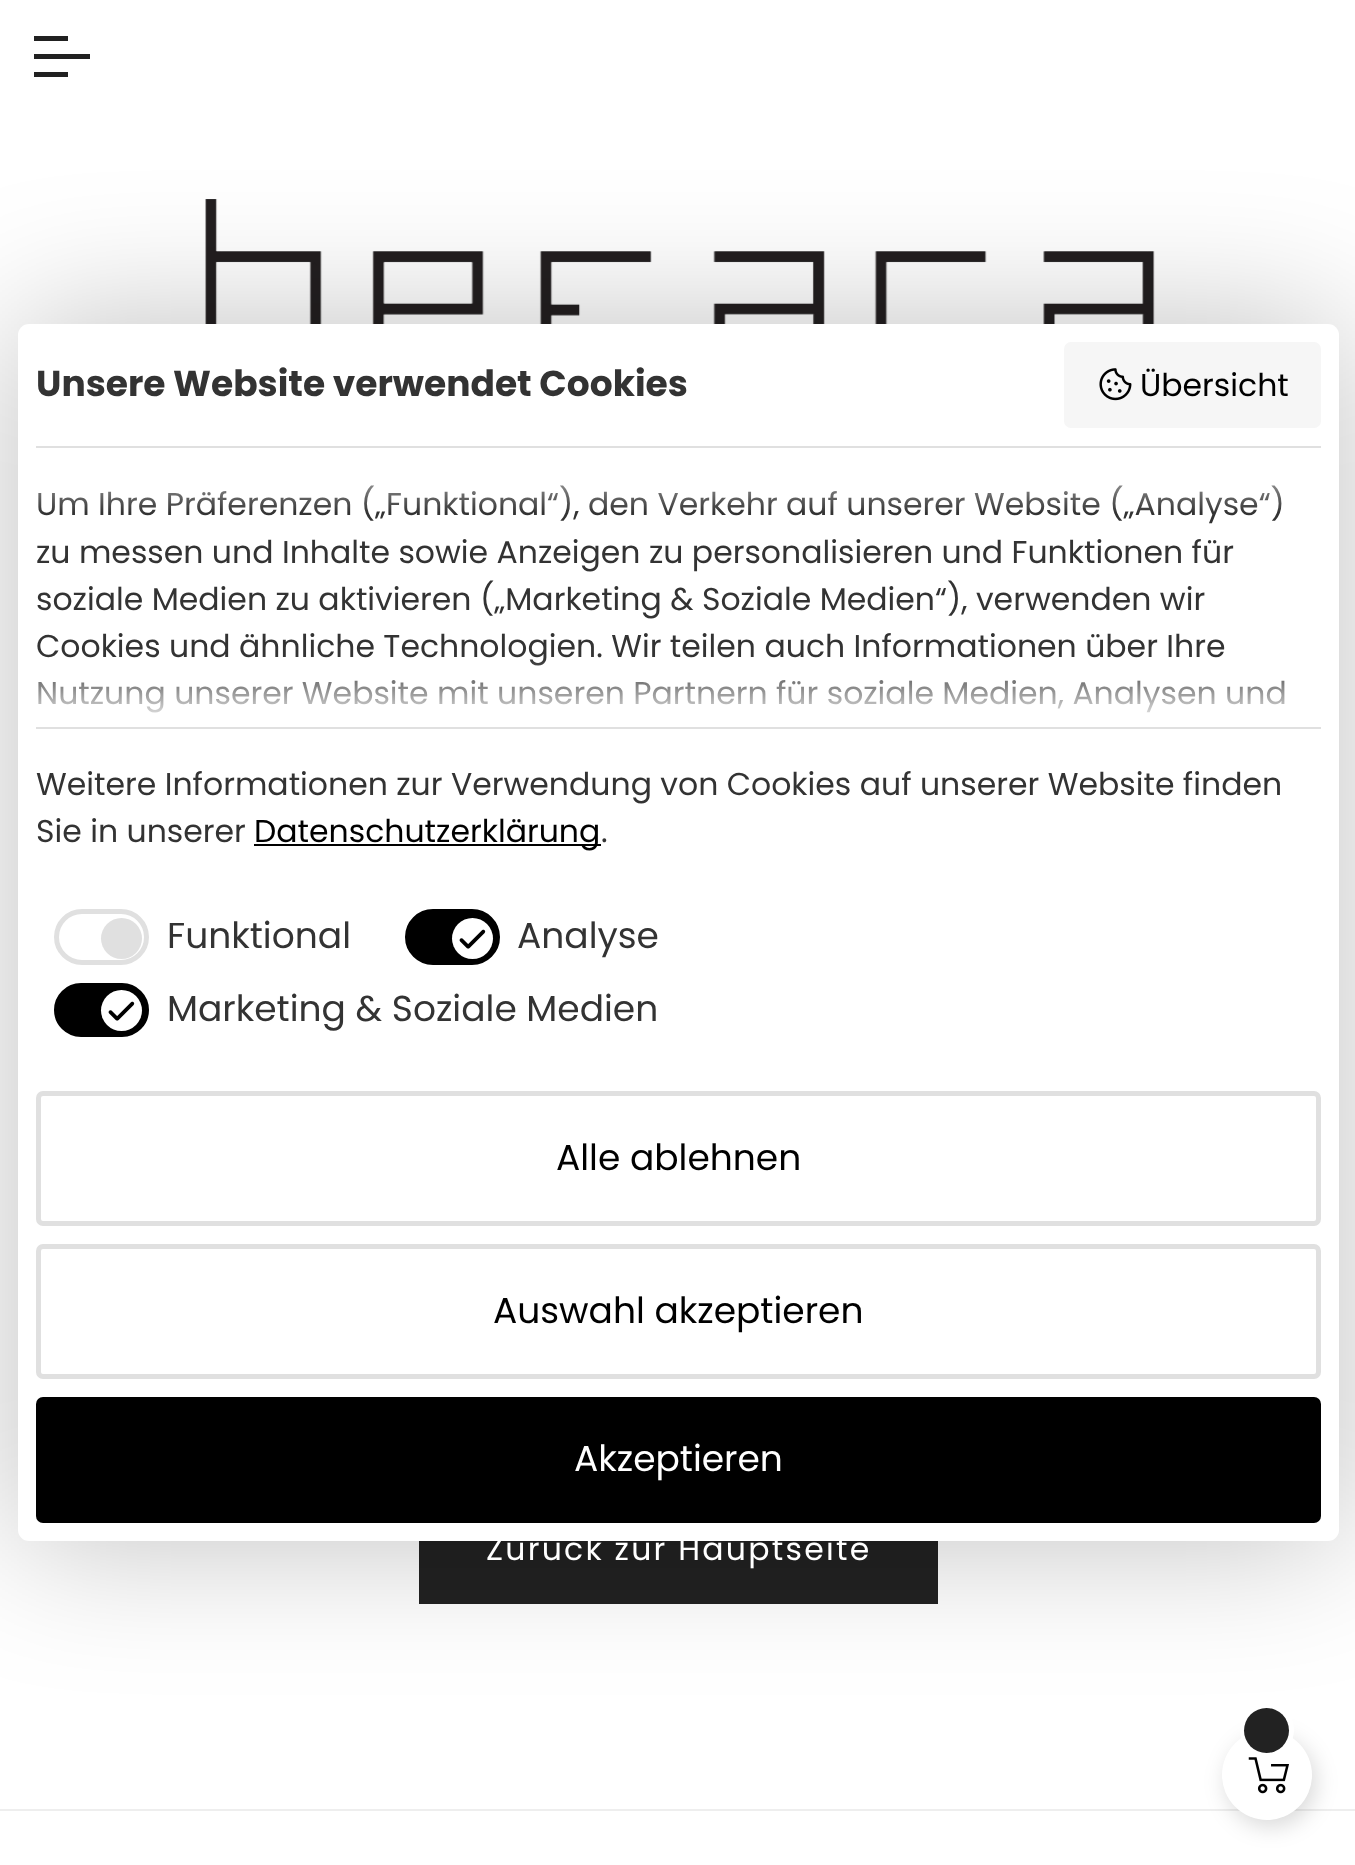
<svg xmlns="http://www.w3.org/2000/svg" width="1355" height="1865">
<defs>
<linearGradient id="g1" gradientUnits="userSpaceOnUse" x1="678" y1="513" x2="678" y2="446"><stop offset="0" stop-color="#fff" stop-opacity="0"/><stop offset="1" stop-color="#fff"/></linearGradient>
<linearGradient id="g2" gradientUnits="userSpaceOnUse" x1="678" y1="659" x2="678" y2="727"><stop offset="0" stop-color="#fff" stop-opacity="0"/><stop offset="1" stop-color="#fff"/></linearGradient>
</defs>
<rect width="100%" height="100%" fill="#fff"/>
<image x="205" y="199" width="950" height="125" href="media/3.png"/>
<rect x="419" y="1541" width="519" height="63" fill="#222"/>
<rect y="1809" width="1355" height="2" fill="#eee"/>
<rect x="1226" y="1737" width="90" height="90" rx="45" fill="#00000026" filter="blur(11px)"/>
<circle cx="1267" cy="1775" r="45" fill="#fff"/>
<image x="1248" y="1757" width="41" height="37" href="media/4.png"/>
<circle cx="1267" cy="1730" r="24.5" fill="none" stroke="#fff" stroke-width="5"/>
<circle cx="1266.5" cy="1730.5" r="22.5" fill="#222"/>
<rect x="18" y="324" width="1321" height="1217" rx="11" fill="#00000040" filter="blur(72px)"/>
<rect x="18" y="324" width="1321" height="1217" rx="11" fill="#fff"/>
<text x="36" y="396" style="font-family:Poppins;font-size:36px;font-weight:bold;fill:#333">Unsere Website verwendet Cookies</text>
<rect x="1064" y="342" width="257" height="86" rx="7" fill="#f6f6f6"/>
<image x="1099" y="368" width="33" height="33" href="media/1.png"/>
<text x="1140" y="396" style="font-family:Poppins;font-size:31.5px;fill:#000">Übersicht</text>
<rect x="36" y="446" width="1285" height="2" fill="#e0e0e0"/>
<rect x="36" y="727" width="1285" height="2" fill="#e0e0e0"/>
<text x="36" y="515" style="font-family:Poppins;font-size:31.5px;fill:#333">Um Ihre Präferenzen („Funktional“), den Verkehr auf unserer Website („Analyse“)</text>
<text x="36" y="563" style="font-family:Poppins;font-size:31.5px;fill:#333">zu messen und Inhalte sowie Anzeigen zu personalisieren und Funktionen für</text>
<text x="36" y="610" style="font-family:Poppins;font-size:31.5px;fill:#333">soziale Medien zu aktivieren („Marketing &amp; Soziale Medien“), verwenden wir</text>
<text x="36" y="657" style="font-family:Poppins;font-size:31.5px;fill:#333">Cookies und ähnliche Technologien. Wir teilen auch Informationen über Ihre</text>
<text x="36" y="704" style="font-family:Poppins;font-size:31.5px;fill:#333">Nutzung unserer Website mit unseren Partnern für soziale Medien, Analysen und</text>
<rect x="38" y="485" width="1244" height="27" fill="url(#g1)"/>
<rect x="38" y="660" width="1247" height="53" fill="url(#g2)"/>
<text x="36" y="795" style="font-family:Poppins;font-size:31.5px;fill:#333">Weitere Informationen zur Verwendung von Cookies auf unserer Website finden</text>
<text x="36" y="842" style="font-family:Poppins;font-size:31.5px;fill:#333">Sie in unserer</text>
<rect x="254" y="844" width="347" height="2" fill="#000"/>
<text x="254" y="842" style="font-family:Poppins;font-size:31.5px;fill:#000">Datenschutzerklärung</text>
<text x="601" y="842" style="font-family:Poppins;font-size:31.5px;fill:#333">.</text>
<rect x="56.5" y="911.5" width="90" height="51" rx="25.5" fill="none" stroke="#e0e0e0" stroke-width="5"/>
<circle cx="121.5" cy="938.5" r="20.5" fill="#e0e0e0"/>
<text x="167" y="948" style="font-family:Poppins;font-size:36px;fill:#333">Funktional</text>
<rect x="407.5" y="911.5" width="90" height="51" rx="25.5" fill="#000" stroke="#000" stroke-width="5"/>
<circle cx="472.5" cy="938.5" r="20.5" fill="#fff"/>
<image x="459" y="929" width="27" height="20" href="media/2.png"/>
<text x="517" y="948" style="font-family:Poppins;font-size:36px;fill:#333">Analyse</text>
<rect x="56.5" y="985.5" width="90" height="49" rx="24.5" fill="#000" stroke="#000" stroke-width="5"/>
<circle cx="121.5" cy="1010.5" r="20.5" fill="#fff"/>
<image x="108" y="1001" width="27" height="20" href="media/2.png"/>
<text x="167" y="1021" style="font-family:Poppins;font-size:36px;fill:#333">Marketing &amp; Soziale Medien</text>
<rect x="38.5" y="1093.5" width="1280" height="130" rx="4.5" fill="none" stroke="#e0e0e0" stroke-width="5"/>
<text x="556" y="1170" style="font-family:Poppins;font-size:36px;fill:#000">Alle ablehnen</text>
<rect x="38.5" y="1246.5" width="1280" height="130" rx="4.5" fill="none" stroke="#e0e0e0" stroke-width="5"/>
<text x="493" y="1323" style="font-family:Poppins;font-size:36px;fill:#000">Auswahl akzeptieren</text>
<rect x="36" y="1397" width="1285" height="126" rx="7" fill="#000"/>
<text x="574" y="1471" style="font-family:Poppins;font-size:36px;fill:#fff">Akzeptieren</text>
<rect x="34" y="36" width="34" height="5" fill="#212121"/>
<rect x="34" y="54" width="56" height="5" fill="#212121"/>
<rect x="34" y="72" width="34" height="5" fill="#212121"/>
<text x="486" y="1560" style="font-family:Poppins;font-size:31.5px;letter-spacing:2.25px;fill:#fff">Zurück zur Hauptseite</text>
</svg>
